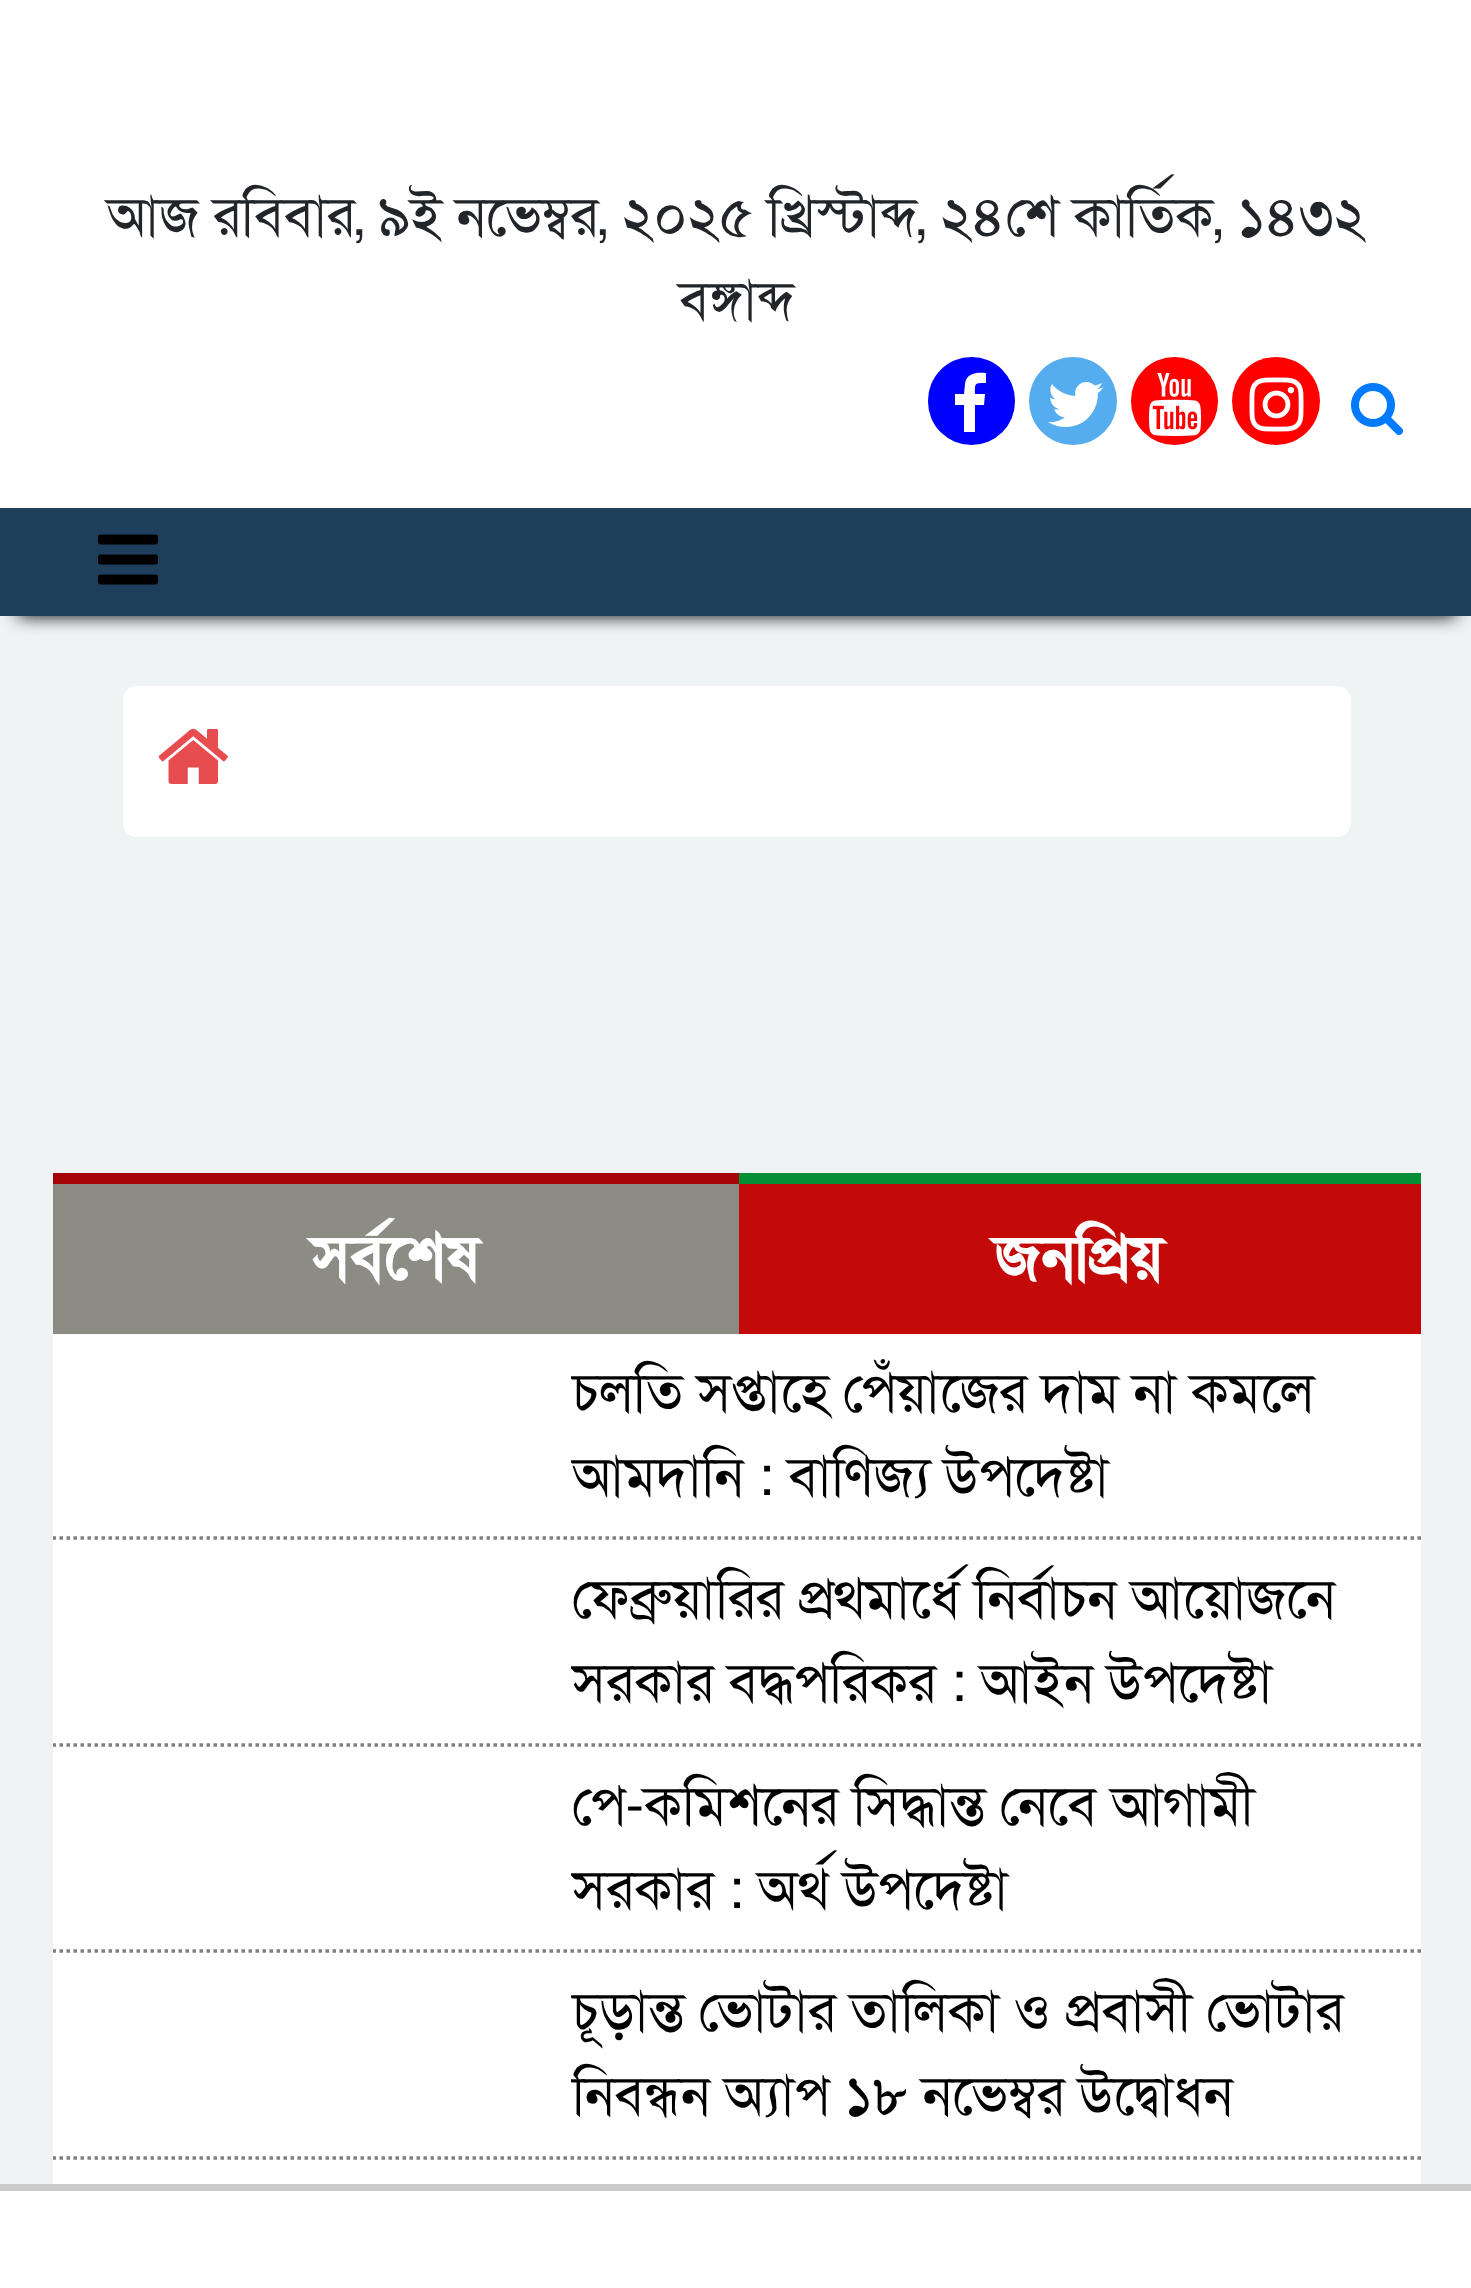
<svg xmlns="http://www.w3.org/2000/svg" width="1471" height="2288">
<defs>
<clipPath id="clip1"><rect x="53" y="1334" width="1368" height="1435"/></clipPath>
<clipPath id="clip2"><rect x="571" y="1351" width="833" height="168"/></clipPath>
<clipPath id="clip3"><rect x="571" y="1558" width="833" height="168"/></clipPath>
<clipPath id="clip4"><rect x="571" y="1764" width="833" height="168"/></clipPath>
<clipPath id="clip5"><rect x="571" y="1971" width="833" height="168"/></clipPath>
</defs>
<rect width="100%" height="100%" fill="#fff"/>
<text x="107" y="235" style="font-family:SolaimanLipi;font-size:56px;fill:#212529">আজ রবিবার, ৯ই নভেম্বর, ২০২৫ খ্রিস্টাব্দ, ২৪শে কার্তিক, ১৪৩২</text>
<text x="679" y="319" style="font-family:SolaimanLipi;font-size:56px;fill:#212529">বঙ্গাব্দ</text>
<rect x="928" y="357" width="87" height="88" rx="43.5" fill="#00f"/>
<path d="M986 373v10c-12 0-11 0-11 11h10l-1 11h-9v27h-11v-27h-9v-11h9l1-10c1-11 12-12 21-11z" fill="#fff"/>
<circle cx="1073" cy="401" r="44" fill="#55acee"/>
<image x="1048" y="382" width="56" height="45" href="media/1.png"/>
<rect x="1131" y="357" width="87" height="88" rx="43.5" fill="#f00"/>
<image x="1148" y="373" width="54" height="63" href="media/2.png"/>
<circle cx="1276" cy="401" r="44" fill="#f00"/>
<image x="1249" y="377" width="55" height="55" href="media/3.png"/>
<image x="1351" y="383" width="52" height="52" href="media/4.png"/>
<rect y="616" width="1471" height="1568" fill="#eff3f4"/>
<rect x="18" y="543" width="1438" height="73" fill="#000" filter="blur(9px)"/>
<rect y="508" width="1471" height="108" fill="#1d3f5b"/>
<image x="98" y="534" width="60" height="51" href="media/5.png"/>
<rect x="123" y="686" width="1228" height="151" rx="14" fill="#fff"/>
<image x="158" y="728" width="70" height="56" href="media/6.png"/>
<rect x="53" y="1184" width="686" height="150" fill="#8c8c85"/>
<rect x="53" y="1173" width="686" height="11" fill="#a60505"/>
<text x="311" y="1278" style="font-family:SolaimanLipi;font-size:63px;font-weight:bold;fill:#fff">সর্বশেষ</text>
<rect x="739" y="1184" width="682" height="150" fill="#c40909"/>
<rect x="739" y="1173" width="682" height="11" fill="#048e35"/>
<text x="995" y="1278" style="font-family:SolaimanLipi;font-size:63px;font-weight:bold;fill:#fff">জনপ্রিয়</text>
<rect x="53" y="1334" width="1368" height="850" fill="#fff"/>
<g clip-path="url(#clip1)">
<path d="M52.5 1538h1368.5" fill="none" stroke="#808080" stroke-width="3.5" stroke-dasharray="3.5 3.5"/>
</g>
<g clip-path="url(#clip2)">
<text x="572" y="1411" style="font-family:SolaimanLipi;font-size:56px;fill:#000">চলতি সপ্তাহে পেঁয়াজের দাম না কমলে</text>
<text x="572" y="1495" style="font-family:SolaimanLipi;font-size:56px;fill:#000">আমদানি : বাণিজ্য উপদেষ্টা</text>
</g>
<g clip-path="url(#clip1)">
<path d="M52.5 1745h1368.5" fill="none" stroke="#808080" stroke-width="3.5" stroke-dasharray="3.5 3.5"/>
</g>
<g clip-path="url(#clip3)">
<text x="572" y="1617" style="font-family:SolaimanLipi;font-size:56px;fill:#000">ফেব্রুয়ারির প্রথমার্ধে নির্বাচন আয়োজনে</text>
<text x="572" y="1701" style="font-family:SolaimanLipi;font-size:56px;fill:#000">সরকার বদ্ধপরিকর : আইন উপদেষ্টা</text>
</g>
<g clip-path="url(#clip1)">
<path d="M52.5 1951h1368.5" fill="none" stroke="#808080" stroke-width="3.5" stroke-dasharray="3.5 3.5"/>
</g>
<text x="572" y="1824" style="font-family:SolaimanLipi;font-size:56px;fill:#000">পে-কমিশনের সিদ্ধান্ত নেবে আগামী</text>
<g clip-path="url(#clip4)">
<text x="572" y="1908" style="font-family:SolaimanLipi;font-size:56px;fill:#000">সরকার : অর্থ উপদেষ্টা</text>
</g>
<g clip-path="url(#clip1)">
<path d="M52.5 2158h1368.5" fill="none" stroke="#808080" stroke-width="3.5" stroke-dasharray="3.5 3.5"/>
</g>
<g clip-path="url(#clip5)">
<text x="572" y="2030" style="font-family:SolaimanLipi;font-size:56px;fill:#000">চূড়ান্ত ভোটার তালিকা ও প্রবাসী ভোটার</text>
<text x="572" y="2114" style="font-family:SolaimanLipi;font-size:56px;fill:#000">নিবন্ধন অ্যাপ ১৮ নভেম্বর উদ্বোধন</text>
</g>
<rect y="2184" width="1471" height="7" fill="#ccc"/>
</svg>
